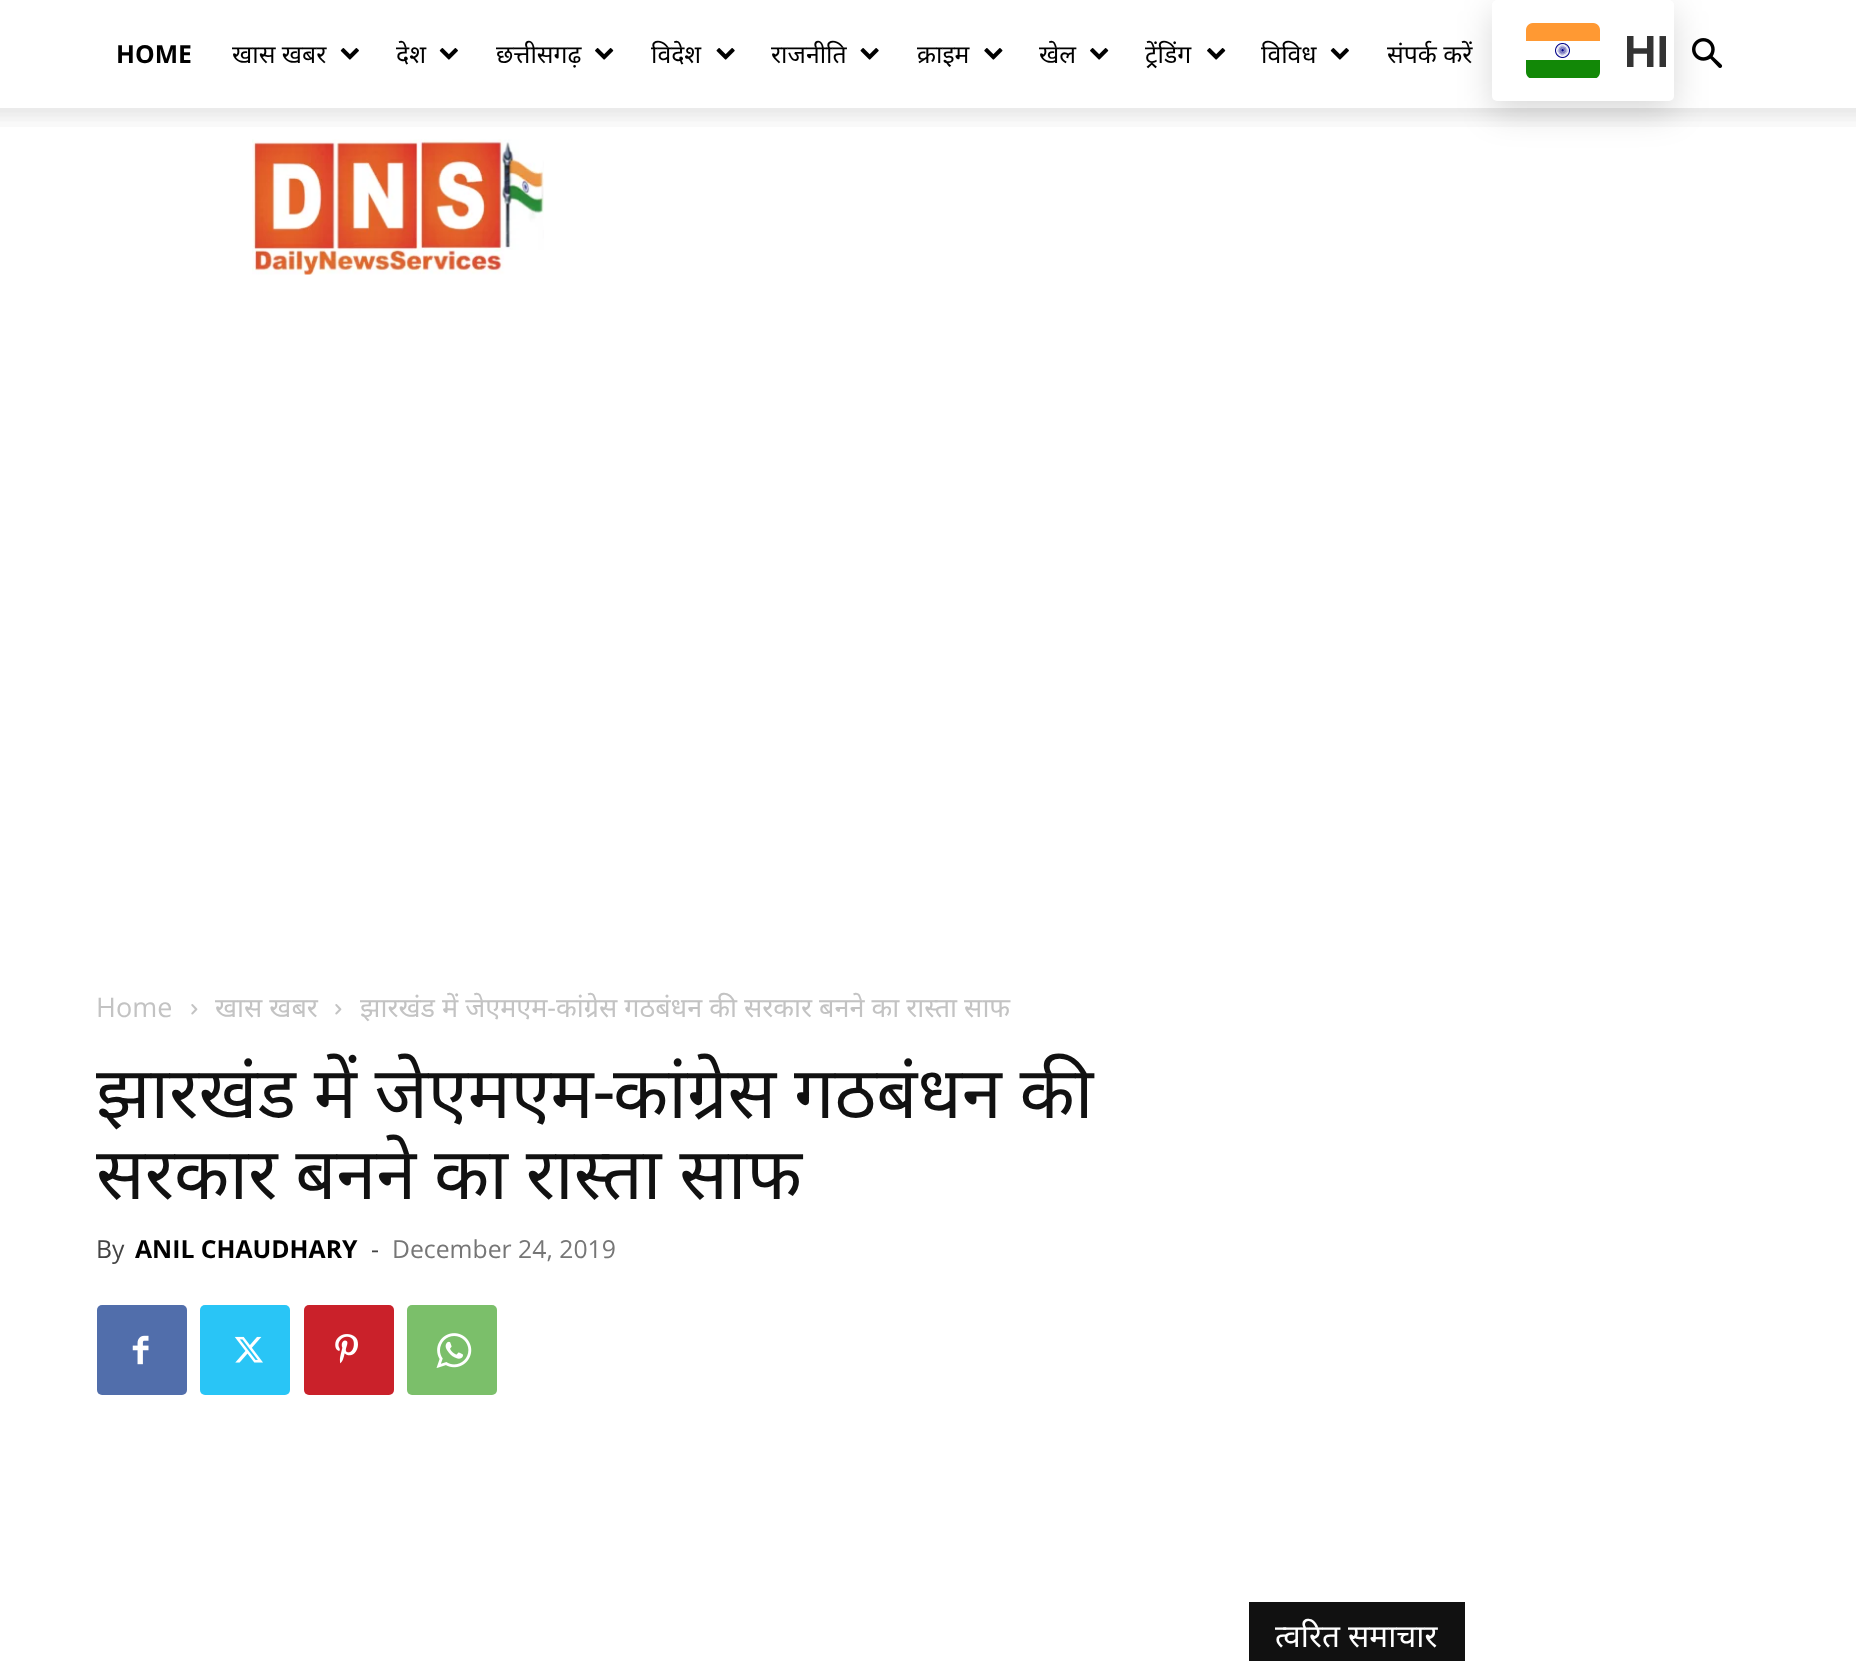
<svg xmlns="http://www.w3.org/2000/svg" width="1856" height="1661">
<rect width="100%" height="100%" fill="#fff"/>
<text x="116" y="63" style="font-family:Open Sans;font-size:24.75px;font-weight:bold;fill:#000">HOME</text>
<text x="232" y="63" style="font-family:Noto Sans;font-size:24.75px;fill:#000">खास खबर</text>
<image x="340" y="48" width="19" height="12" href="media/1.png"/>
<text x="396" y="63" style="font-family:Noto Sans;font-size:24.75px;fill:#000">देश</text>
<image x="439" y="48" width="19" height="12" href="media/1.png"/>
<text x="496" y="63" style="font-family:Noto Sans;font-size:24.75px;fill:#000">छत्तीसगढ़</text>
<image x="595" y="48" width="19" height="12" href="media/2.png"/>
<text x="651" y="63" style="font-family:Noto Sans;font-size:24.75px;fill:#000">विदेश</text>
<image x="716" y="48" width="19" height="12" href="media/3.png"/>
<text x="771" y="63" style="font-family:Noto Sans;font-size:24.75px;fill:#000">राजनीति</text>
<image x="860" y="48" width="19" height="12" href="media/3.png"/>
<text x="917" y="63" style="font-family:Noto Sans;font-size:24.75px;fill:#000">क्राइम</text>
<image x="984" y="48" width="19" height="12" href="media/4.png"/>
<text x="1039" y="63" style="font-family:Noto Sans;font-size:24.75px;fill:#000">खेल</text>
<image x="1090" y="48" width="19" height="12" href="media/2.png"/>
<text x="1145" y="63" style="font-family:Noto Sans;font-size:24.75px;fill:#000">ट्रेंडिंग</text>
<image x="1207" y="48" width="19" height="12" href="media/2.png"/>
<text x="1261" y="63" style="font-family:Noto Sans;font-size:24.75px;fill:#000">विविध</text>
<image x="1330" y="48" width="19" height="12" href="media/1.png"/>
<text x="1387" y="63" style="font-family:Noto Sans;font-size:24.75px;fill:#000">संपर्क करें</text>
<image x="0" y="108" width="1856" height="19" href="media/7.png"/>
<rect x="1492" y="11" width="182" height="102" rx="5" fill="#00000026" filter="blur(17px)"/>
<rect x="1492" width="182" height="101" rx="5" fill="#fff"/>
<image x="1526" y="23" width="74" height="55" href="media/5.png"/>
<text x="1624" y="67" style="font-family:Liberation Sans;font-size:45px;font-weight:bold;fill:#333">HI</text>
<image x="1692" y="38" width="31" height="30" href="media/6.png"/>
<image x="252" y="139" width="292" height="136" href="media/8.png"/>
<text x="96" y="1017" style="font-family:Open Sans;font-size:27px;fill:#c3c3c3">Home</text>
<image x="191" y="1004" width="7" height="11" href="media/9.png"/>
<text x="215" y="1017" style="font-family:Noto Sans;font-size:27px;fill:#c3c3c3">खास खबर</text>
<image x="335" y="1004" width="7" height="11" href="media/9.png"/>
<text x="360" y="1017" style="font-family:Noto Sans;font-size:27px;fill:#c3c3c3">झारखंड में जेएमएम-कांग्रेस गठबंधन की सरकार बनने का रास्ता साफ</text>
<text x="96" y="1118" word-spacing="-1" style="font-family:Noto Sans;font-size:72px;fill:#111">झारखंड में जेएमएम</text>
<text x="594" y="1118" style="font-family:Roboto;font-size:72px;fill:#111">-</text>
<text x="613" y="1118" word-spacing="-1" style="font-family:Noto Sans;font-size:72px;fill:#111">कांग्रेस गठबंधन की</text>
<text x="96" y="1199" word-spacing="-1" style="font-family:Noto Sans;font-size:72px;fill:#111">सरकार बनने का रास्ता साफ</text>
<text x="96" y="1258" style="font-family:Open Sans;font-size:24.75px;fill:#444">By</text>
<text x="135" y="1258" style="font-family:Open Sans;font-size:24.75px;font-weight:bold;fill:#000">ANIL CHAUDHARY</text>
<text x="371" y="1258" style="font-family:Open Sans;font-size:24.75px;fill:#444">-</text>
<text x="392" y="1258" style="font-family:Open Sans;font-size:24.75px;fill:#767676">December 24, 2019</text>
<rect x="97" y="1305" width="90" height="90" rx="5" fill="#516eab"/>
<image x="132" y="1335" width="17" height="30" href="media/10.png"/>
<rect x="200" y="1305" width="90" height="90" rx="5" fill="#29c5f6"/>
<image x="234" y="1336" width="29" height="27" href="media/11.png"/>
<rect x="304" y="1305" width="90" height="90" rx="5" fill="#ca212a"/>
<image x="335" y="1334" width="23" height="30" href="media/12.png"/>
<rect x="407" y="1305" width="90" height="90" rx="5" fill="#7bbf6a"/>
<image x="436" y="1333" width="36" height="35" href="media/13.png"/>
<rect x="1249" y="1602" width="216" height="59" fill="#111"/>
<text x="1275" y="1647" style="font-family:Noto Sans;font-size:31.5px;fill:#fff">त्वरित समाचार</text>
</svg>
